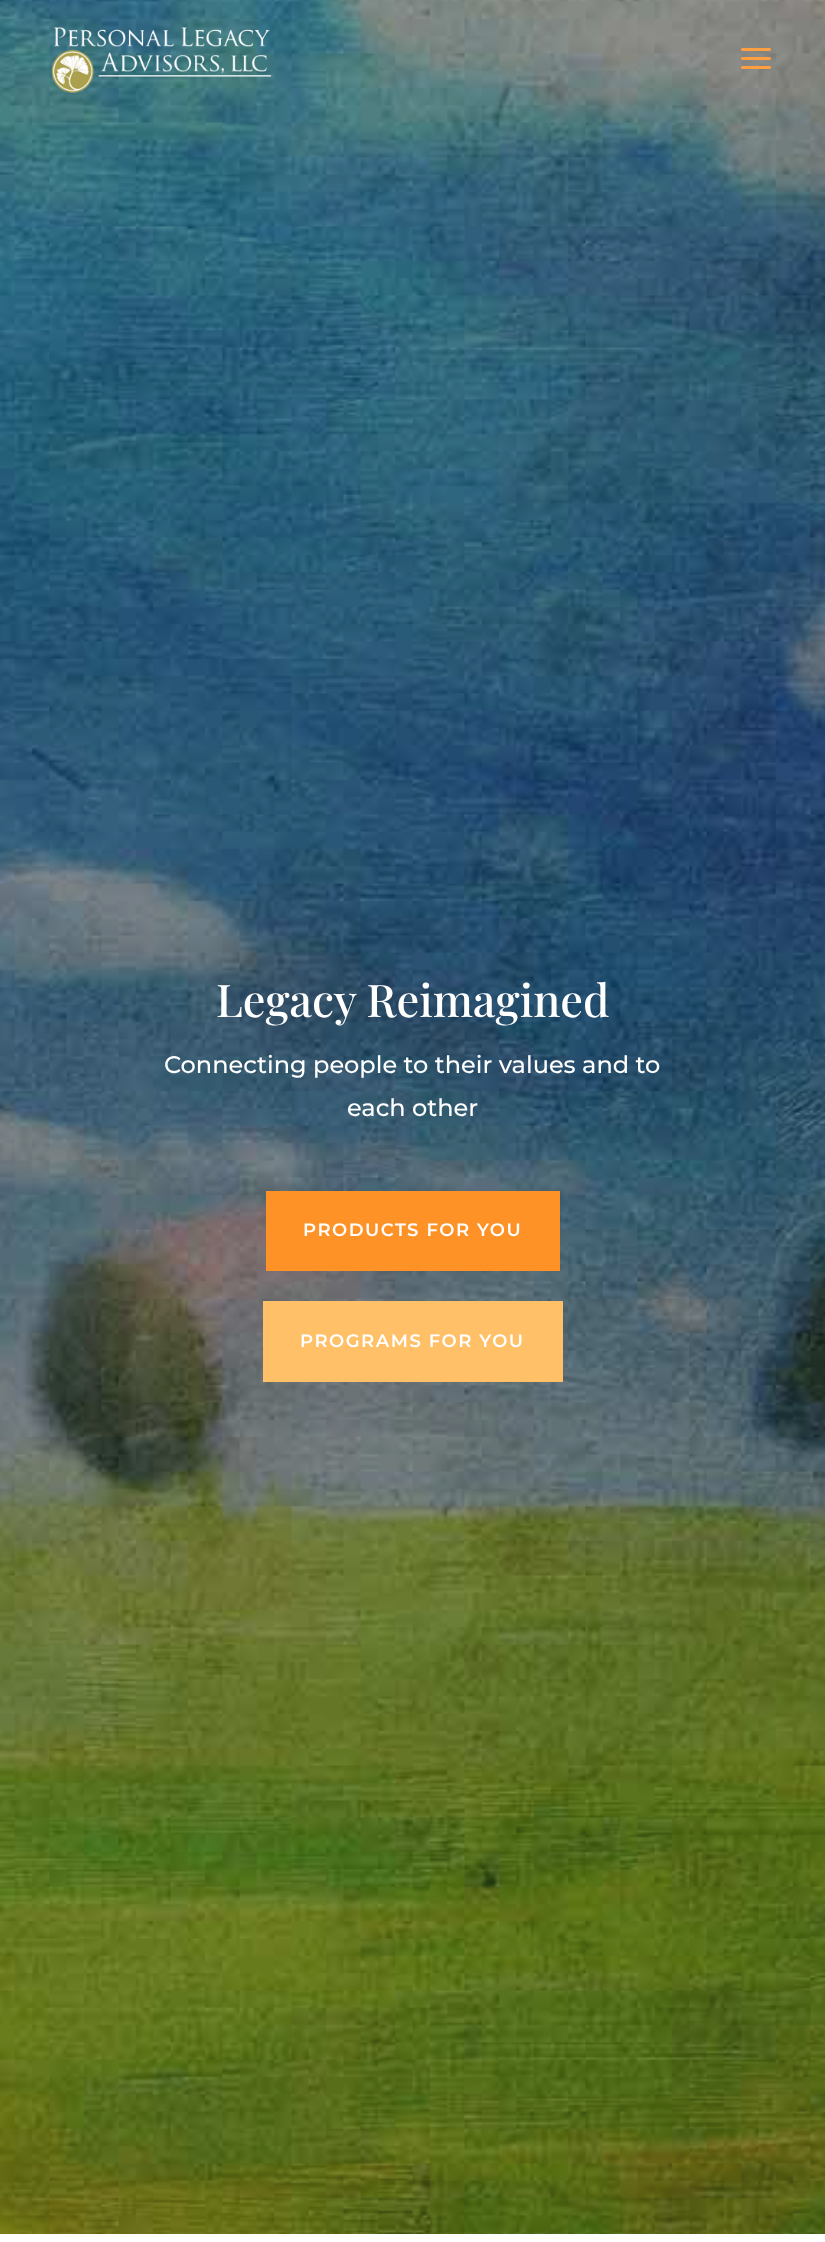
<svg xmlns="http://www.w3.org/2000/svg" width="825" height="2242">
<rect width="100%" height="100%" fill="#fff"/>
<image x="0" y="0" width="825" height="2234" href="media/3.png"/>
<image x="51" y="27" width="221" height="66" href="media/1.png"/>
<image x="741" y="48" width="30" height="21" href="media/2.png"/>
<text x="216" y="1017" style="font-family:Playfair Display;font-size:45px;font-weight:500;fill:#fff">Legacy Reimagined</text>
<text x="164" y="1073" style="font-family:Montserrat;font-size:24px;font-weight:500;fill:#fff">Connecting people to their values and to</text>
<text x="347" y="1116" style="font-family:Montserrat;font-size:24px;font-weight:500;fill:#fff">each other</text>
<rect x="266" y="1191" width="294" height="80" fill="#ff9226"/>
<text x="303" y="1236" style="font-family:Montserrat;font-size:18px;font-weight:600;letter-spacing:1.5px;fill:#fff">PRODUCTS FOR YOU</text>
<rect x="263" y="1301" width="300" height="81" fill="#ffc068"/>
<text x="300" y="1347" style="font-family:Montserrat;font-size:18px;font-weight:600;letter-spacing:1.5px;fill:#fff">PROGRAMS FOR YOU</text>
</svg>
